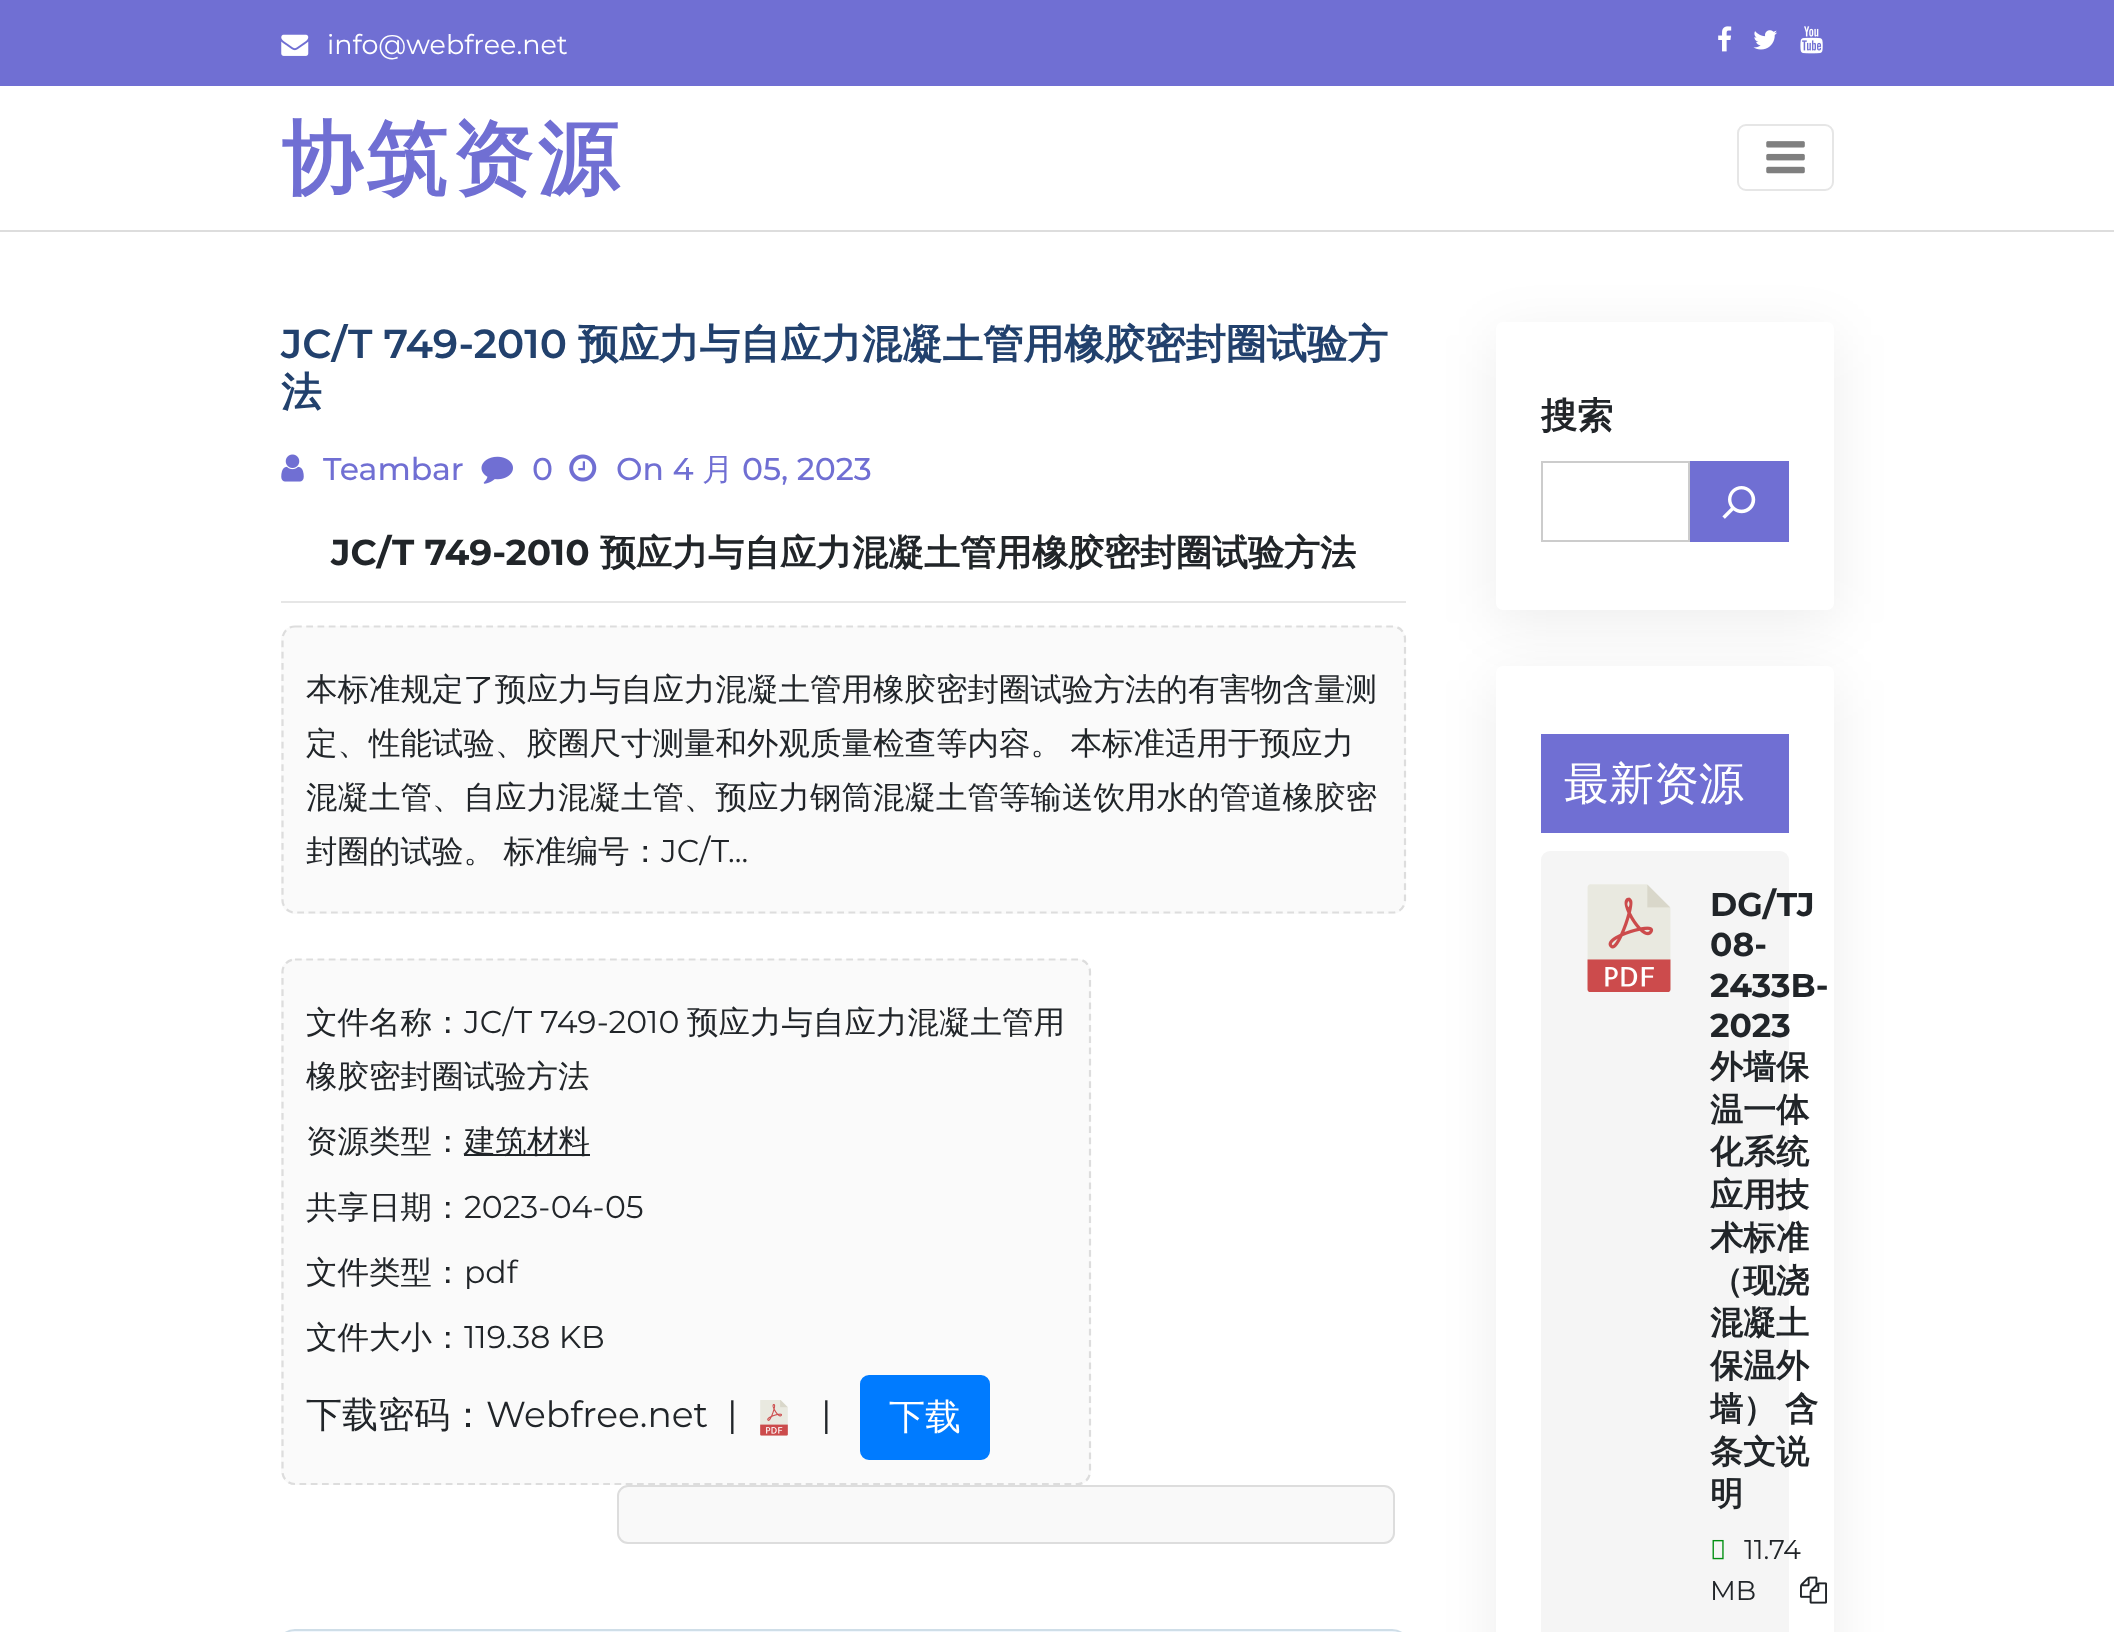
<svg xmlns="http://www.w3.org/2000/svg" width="2114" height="1632">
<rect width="100%" height="100%" fill="#fff"/>
<rect width="2114" height="86" fill="#706fd3"/>
<image x="281" y="34" width="28" height="22" href="media/1.png"/>
<text x="327" y="54" style="font-family:Montserrat;font-size:27px;fill:#fff">info@webfree.net</text>
<image x="1718" y="26" width="14" height="26" href="media/2.png"/>
<image x="1753" y="30" width="24" height="20" href="media/3.png"/>
<image x="1800" y="26" width="23" height="28" href="media/4.png"/>
<rect y="230" width="2114" height="2" fill="#ddd"/>
<text x="281" y="187" style="font-family:WenQuanYi Zen Hei;font-size:81px;font-weight:bold;letter-spacing:4.5px;fill:#706fd3">协筑资源</text>
<rect x="1738" y="125" width="95" height="65" rx="8" fill="none" stroke="#e6e6e6" stroke-width="2"/>
<image x="1766" y="141" width="39" height="33" href="media/5.png"/>
<text x="281" y="358" style="font-family:Montserrat;font-size:40.5px;font-weight:600;fill:#22416d">JC/T 749-2010</text>
<text x="578" y="358" style="font-family:WenQuanYi Zen Hei;font-size:40.5px;font-weight:bold;fill:#22416d">预应力与自应力混凝土管用橡胶密封圈试验方</text>
<text x="281" y="406" style="font-family:WenQuanYi Zen Hei;font-size:40.5px;font-weight:bold;fill:#22416d">法</text>
<image x="281" y="454" width="23" height="28" href="media/6.png"/>
<text x="323" y="480" style="font-family:Montserrat;font-size:31.5px;font-weight:500;fill:#706fd3">Teambar</text>
<image x="481" y="456" width="32" height="28" href="media/7.png"/>
<text x="532" y="480" style="font-family:Montserrat;font-size:31.5px;font-weight:500;fill:#706fd3">0</text>
<image x="569" y="454" width="28" height="28" href="media/8.png"/>
<text x="616" y="480" style="font-family:Montserrat;font-size:31.5px;font-weight:500;fill:#706fd3">On 4</text>
<text x="702" y="480" style="font-family:WenQuanYi Zen Hei;font-size:31.5px;font-weight:500;fill:#706fd3">月</text>
<text x="742" y="480" style="font-family:Montserrat;font-size:31.5px;font-weight:500;fill:#706fd3">05, 2023</text>
<rect x="281" y="601" width="1125" height="2" fill="#e6e6e6"/>
<text x="331" y="565" style="font-family:Montserrat;font-size:36px;font-weight:bold;fill:#212529">JC/T 749-2010</text>
<text x="600" y="565" style="font-family:WenQuanYi Zen Hei;font-size:36px;font-weight:bold;fill:#212529">预应力与自应力混凝土管用橡胶密封圈试验方法</text>
<rect x="281" y="626" width="1125" height="288" rx="14" fill="#fafafa"/>
<path d="M295 626.5h1098c6.5 0 12 5.5 12 12.5v261c0 7-5.5 12.5-12 12.5h-1098c-7 0-12.5-5.5-12.5-12.5v-261c0-7 5.5-12.5 12.5-12.5z" fill="none" stroke="#ddd" stroke-width="2.2" stroke-dasharray="6.75 4.5"/>
<text x="306" y="700" style="font-family:WenQuanYi Zen Hei;font-size:31.5px;font-weight:500;fill:#212529">本标准规定了预应力与自应力混凝土管用橡胶密封圈试验方法的有害物含量测</text>
<text x="306" y="754" word-spacing="-1" style="font-family:WenQuanYi Zen Hei;font-size:31.5px;font-weight:500;fill:#212529">定、性能试验、胶圈尺寸测量和外观质量检查等内容。 本标准适用于预应力</text>
<text x="306" y="808" style="font-family:WenQuanYi Zen Hei;font-size:31.5px;font-weight:500;fill:#212529">混凝土管、自应力混凝土管、预应力钢筒混凝土管等输送饮用水的管道橡胶密</text>
<text x="306" y="862" word-spacing="-1" style="font-family:WenQuanYi Zen Hei;font-size:31.5px;font-weight:500;fill:#212529">封圈的试验。 标准编号：</text>
<text x="661" y="862" style="font-family:Montserrat;font-size:31.5px;fill:#212529">JC/T...</text>
<rect x="281" y="959" width="810" height="526" rx="14" fill="#fafafa"/>
<path d="M295 959.5h783c6.5 0 12 5.5 12 12.5v499.5c0 7-5.5 12.5-12 12.5h-783c-7 0-12.5-5.5-12.5-12.5v-499.5c0-7 5.5-12.5 12.5-12.5z" fill="none" stroke="#ddd" stroke-width="2.2" stroke-dasharray="6.75 4.5"/>
<text x="306" y="1033" style="font-family:WenQuanYi Zen Hei;font-size:31.5px;font-weight:500;fill:#212529">文件名称：</text>
<text x="464" y="1033" style="font-family:Montserrat;font-size:31.5px;fill:#212529">JC/T 749-2010</text>
<text x="687" y="1033" style="font-family:WenQuanYi Zen Hei;font-size:31.5px;font-weight:500;fill:#212529">预应力与自应力混凝土管用</text>
<text x="306" y="1087" style="font-family:WenQuanYi Zen Hei;font-size:31.5px;font-weight:500;fill:#212529">橡胶密封圈试验方法</text>
<text x="306" y="1152" style="font-family:WenQuanYi Zen Hei;font-size:31.5px;font-weight:500;fill:#212529">资源类型：</text>
<rect x="464" y="1154" width="126" height="2" fill="#212529"/>
<text x="464" y="1152" style="font-family:WenQuanYi Zen Hei;font-size:31.5px;font-weight:500;fill:#212529">建筑材料</text>
<text x="306" y="1218" style="font-family:WenQuanYi Zen Hei;font-size:31.5px;font-weight:500;fill:#212529">共享日期：</text>
<text x="464" y="1218" style="font-family:Montserrat;font-size:31.5px;fill:#212529">2023-04-05</text>
<text x="306" y="1283" style="font-family:WenQuanYi Zen Hei;font-size:31.5px;font-weight:500;fill:#212529">文件类型：</text>
<text x="464" y="1283" style="font-family:Montserrat;font-size:31.5px;fill:#212529">pdf</text>
<text x="306" y="1348" style="font-family:WenQuanYi Zen Hei;font-size:31.5px;font-weight:500;fill:#212529">文件大小：</text>
<text x="464" y="1348" style="font-family:Montserrat;font-size:31.5px;fill:#212529">119.38 KB</text>
<text x="306" y="1427" style="font-family:WenQuanYi Zen Hei;font-size:36px;font-weight:500;fill:#212529">下载密码：</text>
<text x="486" y="1427" style="font-family:Montserrat;font-size:36px;fill:#212529" xml:space="preserve">Webfree.net  |</text>
<image x="760" y="1400" width="28" height="36" href="media/9.png"/>
<text x="821" y="1427" style="font-family:Montserrat;font-size:36px;fill:#212529">|</text>
<rect x="861" y="1376" width="128" height="83" rx="8" fill="#007bff" stroke="#007bff" stroke-width="2"/>
<text x="889" y="1429" style="font-family:WenQuanYi Zen Hei;font-size:36px;font-weight:500;fill:#fff">下载</text>
<rect x="618" y="1486" width="776" height="57" rx="10" fill="#f9f9f9" stroke="#ddd" stroke-width="2"/>
<rect x="282" y="1630" width="1123" height="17" rx="13" fill="#f1f7fd" stroke="#cfdee8" stroke-width="2"/>
<rect x="1496" y="335" width="338" height="288" rx="7" fill="#00000012" filter="blur(28px)"/>
<rect x="1496" y="322" width="338" height="288" rx="7" fill="#fff"/>
<text x="1541" y="428" style="font-family:WenQuanYi Zen Hei;font-size:36px;font-weight:bold;fill:#212529">搜索</text>
<rect x="1542" y="462" width="147" height="79" fill="none" stroke="#ccc" stroke-width="2"/>
<rect x="1690" y="461" width="99" height="81" fill="#706fd3"/>
<image x="1722" y="486" width="34" height="33" href="media/10.png"/>
<rect x="1496" y="680" width="338" height="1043" rx="7" fill="#00000012" filter="blur(28px)"/>
<rect x="1496" y="666" width="338" height="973" rx="7" fill="#fff"/>
<rect x="1541" y="734" width="248" height="99" fill="#706fd3"/>
<text x="1564" y="799" style="font-family:WenQuanYi Zen Hei;font-size:45px;font-weight:500;fill:#fff">最新资源</text>
<rect x="1541" y="851" width="248" height="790" rx="9" fill="#f5f5f5"/>
<image x="1587" y="884" width="84" height="108" href="media/11.png"/>
<text x="1710" y="916" style="font-family:Montserrat;font-size:33px;font-weight:bold;fill:#212529">DG/TJ</text>
<text x="1710" y="956" style="font-family:Montserrat;font-size:33px;font-weight:bold;fill:#212529">08-</text>
<text x="1710" y="997" style="font-family:Montserrat;font-size:33px;font-weight:bold;fill:#212529">2433B-</text>
<text x="1710" y="1037" style="font-family:Montserrat;font-size:33px;font-weight:bold;fill:#212529">2023</text>
<text x="1710" y="1078" style="font-family:WenQuanYi Zen Hei;font-size:33px;font-weight:bold;fill:#212529">外墙保</text>
<text x="1710" y="1121" style="font-family:WenQuanYi Zen Hei;font-size:33px;font-weight:bold;fill:#212529">温一体</text>
<text x="1710" y="1163" style="font-family:WenQuanYi Zen Hei;font-size:33px;font-weight:bold;fill:#212529">化系统</text>
<text x="1710" y="1206" style="font-family:WenQuanYi Zen Hei;font-size:33px;font-weight:bold;fill:#212529">应用技</text>
<text x="1710" y="1249" style="font-family:WenQuanYi Zen Hei;font-size:33px;font-weight:bold;fill:#212529">术标准</text>
<text x="1710" y="1292" style="font-family:WenQuanYi Zen Hei;font-size:33px;font-weight:bold;fill:#212529">（现浇</text>
<text x="1710" y="1334" style="font-family:WenQuanYi Zen Hei;font-size:33px;font-weight:bold;fill:#212529">混凝土</text>
<text x="1710" y="1377" style="font-family:WenQuanYi Zen Hei;font-size:33px;font-weight:bold;fill:#212529">保温外</text>
<text x="1710" y="1420" word-spacing="-1" style="font-family:WenQuanYi Zen Hei;font-size:33px;font-weight:bold;fill:#212529">墙） 含</text>
<text x="1710" y="1463" style="font-family:WenQuanYi Zen Hei;font-size:33px;font-weight:bold;fill:#212529">条文说</text>
<text x="1710" y="1505" style="font-family:WenQuanYi Zen Hei;font-size:33px;font-weight:bold;fill:#212529">明</text>
<image x="1712" y="1539" width="12" height="21" href="media/12.png"/>
<text x="1744" y="1559" style="font-family:Montserrat;font-size:27px;fill:#212529">11.74</text>
<text x="1710" y="1600" style="font-family:Montserrat;font-size:27px;fill:#212529">MB</text>
<image x="1800" y="1576" width="27" height="28" href="media/13.png"/>
</svg>
